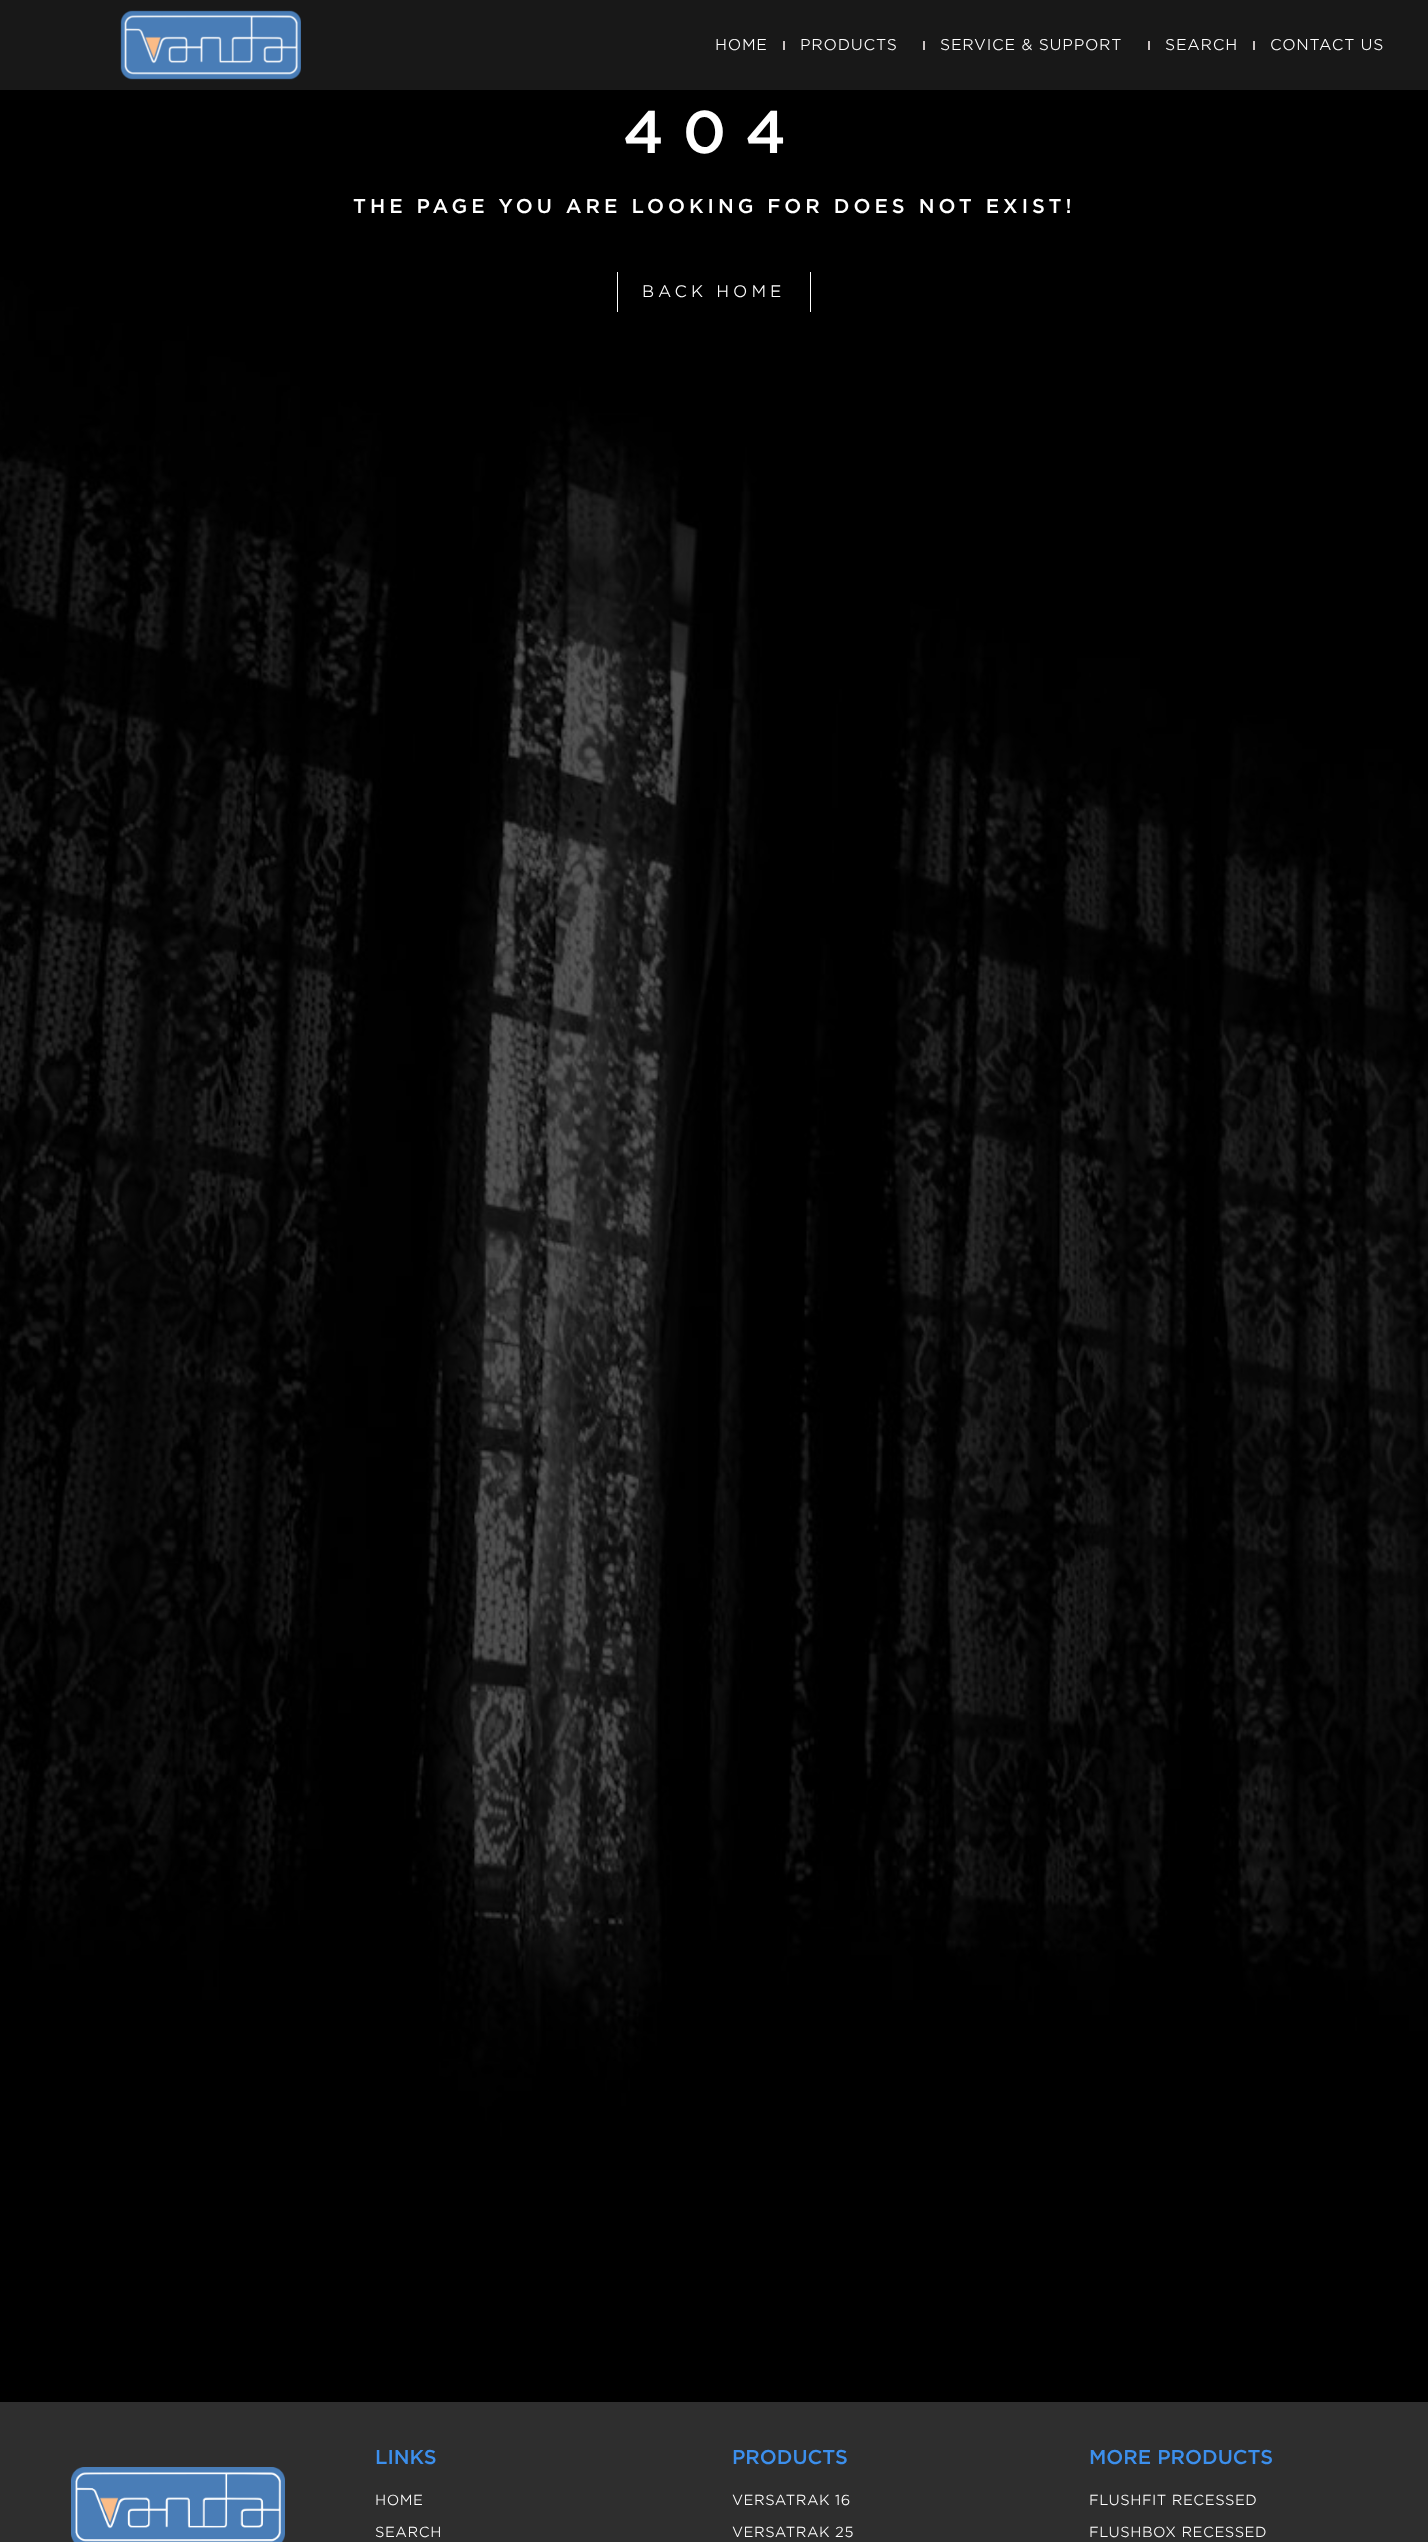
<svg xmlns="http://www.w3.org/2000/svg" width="1428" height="2542">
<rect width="100%" height="100%" fill="#fff"/>
<rect width="1428" height="90" fill="#181818"/>
<image x="120" y="10" width="181" height="70" href="media/1.png"/>
<text x="715" y="50" style="font-family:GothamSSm;font-size:15px;font-weight:300;letter-spacing:0.75px;fill:#fff">HOME</text>
<rect x="783" y="41" width="2" height="9" fill="#ccc4c4"/>
<text x="800" y="50" style="font-family:GothamSSm;font-size:15px;font-weight:300;letter-spacing:0.75px;fill:#fff">PRODUCTS</text>
<rect x="923" y="41" width="2" height="9" fill="#ccc4c4"/>
<text x="940" y="50" style="font-family:GothamSSm;font-size:15px;font-weight:300;letter-spacing:0.75px;fill:#fff">SERVICE &amp; SUPPORT</text>
<rect x="1148" y="41" width="2" height="9" fill="#ccc4c4"/>
<text x="1165" y="50" style="font-family:GothamSSm;font-size:15px;font-weight:300;letter-spacing:0.75px;fill:#fff">SEARCH</text>
<rect x="1253" y="41" width="2" height="9" fill="#ccc4c4"/>
<text x="1270" y="50" style="font-family:GothamSSm;font-size:15px;font-weight:300;letter-spacing:0.75px;fill:#fff">CONTACT US</text>
<image x="0" y="90" width="1428" height="2312" href="media/2.png"/>
<text x="623" y="153" style="font-family:Gotham;font-size:60px;font-weight:500;letter-spacing:19px;fill:#fff">404</text>
<text x="353" y="213" style="font-family:Gotham;font-size:20px;font-weight:500;letter-spacing:4px;fill:#fff">THE PAGE YOU ARE LOOKING FOR DOES NOT EXIST!</text>
<rect x="810" y="272" width="1" height="40" fill="#fff"/>
<rect x="617" y="272" width="1" height="40" fill="#fff"/>
<text x="642" y="297" style="font-family:GothamSSm;font-size:16px;font-weight:300;letter-spacing:4px;fill:#fff">BACK HOME</text>
<rect y="2402" width="1428" height="140" fill="#2e2e2e"/>
<image x="71" y="2467" width="214" height="75" href="media/3.png"/>
<text x="375" y="2464" style="font-family:Gotham;font-size:20px;font-weight:500;fill:#3c8fec">LINKS</text>
<text x="375" y="2505" style="font-family:GothamSSm;font-size:14px;font-weight:300;letter-spacing:0.5px;fill:#fff">HOME</text>
<text x="375" y="2537" style="font-family:GothamSSm;font-size:14px;font-weight:300;letter-spacing:0.5px;fill:#fff">SEARCH</text>
<text x="732" y="2464" style="font-family:Gotham;font-size:20px;font-weight:500;fill:#3c8fec">PRODUCTS</text>
<text x="732" y="2505" style="font-family:GothamSSm;font-size:14px;font-weight:300;letter-spacing:0.5px;fill:#fff">VERSATRAK 16</text>
<text x="732" y="2537" style="font-family:GothamSSm;font-size:14px;font-weight:300;letter-spacing:0.5px;fill:#fff">VERSATRAK 25</text>
<text x="1089" y="2464" style="font-family:Gotham;font-size:20px;font-weight:500;fill:#3c8fec">MORE PRODUCTS</text>
<text x="1089" y="2505" style="font-family:GothamSSm;font-size:14px;font-weight:300;letter-spacing:0.5px;fill:#fff">FLUSHFIT RECESSED</text>
<text x="1089" y="2537" style="font-family:GothamSSm;font-size:14px;font-weight:300;letter-spacing:0.5px;fill:#fff">FLUSHBOX RECESSED</text>
</svg>
